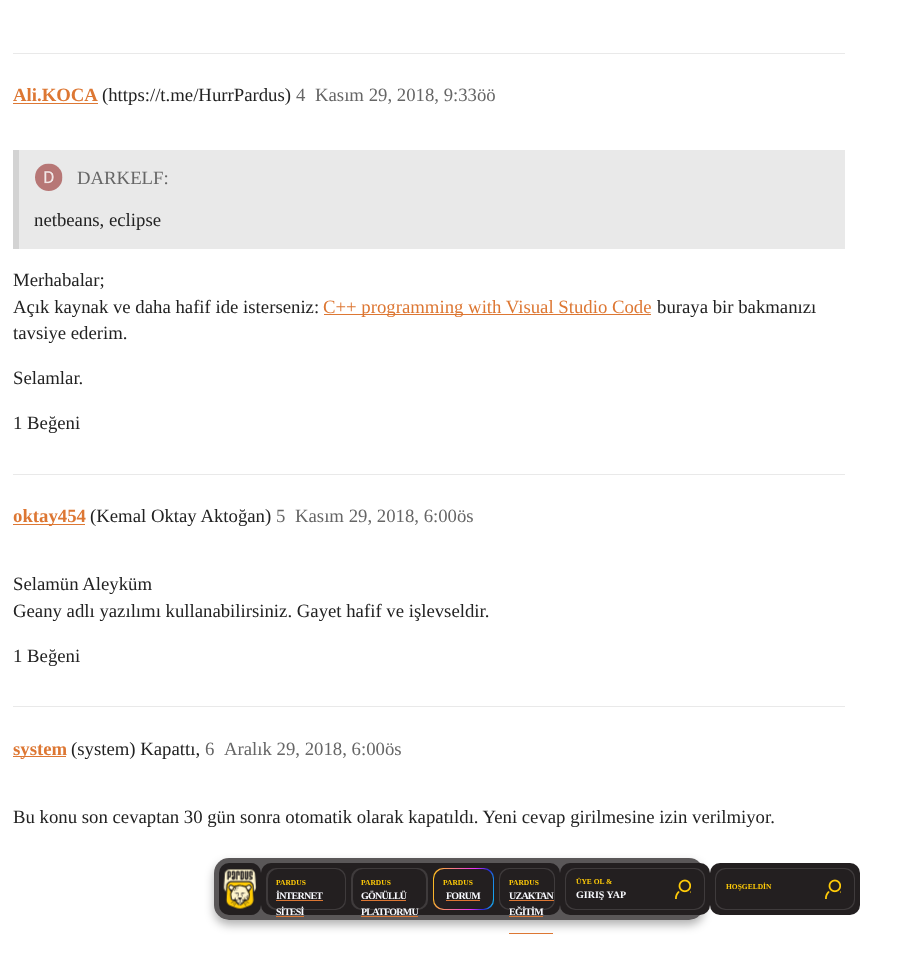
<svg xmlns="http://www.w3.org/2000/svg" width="916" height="957">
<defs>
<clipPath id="clip1"><path d="M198 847h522v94h-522zm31 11h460c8.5 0 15 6.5 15 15v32c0 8.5-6.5 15-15 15h-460c-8.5 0-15-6.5-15-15v-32c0-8.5 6.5-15 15-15z" clip-rule="evenodd"/></clipPath>
<linearGradient id="g1" gradientUnits="userSpaceOnUse" x1="428" y1="884" x2="498" y2="893"><stop offset="0" stop-color="#ffcb08"/><stop offset="0.64" stop-color="#eb31fb"/><stop offset="0.83" stop-color="#252cd5"/><stop offset="1" stop-color="#10e0fd"/></linearGradient>
<clipPath id="clip2"><rect x="575" y="891" width="100" height="10"/></clipPath>
</defs>
<rect width="100%" height="100%" fill="#fff"/>
<rect x="13" y="53" width="832" height="1" fill="#e9e9e9"/>
<text x="13" y="101" style="font-family:Liberation Serif;font-size:18.75px;font-weight:bold;fill:#d73">Ali.KOCA</text>
<rect x="13" y="103" width="85" height="1" fill="#d73"/>
<text x="102" y="101" style="font-family:Liberation Serif;font-size:18.75px;fill:#222">(https://t.me/HurrPardus)</text>
<text x="296" y="101" style="font-family:Liberation Serif;font-size:18.75px;fill:#666">4</text>
<text x="315" y="101" style="font-family:Liberation Serif;font-size:18.75px;fill:#666">Kasım 29, 2018, 9:33öö</text>
<rect x="19" y="150" width="826" height="99" fill="#e9e9e9"/>
<rect x="13" y="150" width="6" height="99" fill="#d3d3d3"/>
<image x="35" y="163" width="28" height="28" href="media/1.png"/>
<text x="77" y="184" style="font-family:Liberation Serif;font-size:18.75px;fill:#666">DARKELF:</text>
<text x="34" y="226" style="font-family:Liberation Serif;font-size:18.75px;fill:#222">netbeans, eclipse</text>
<text x="13" y="286" style="font-family:Liberation Serif;font-size:18.75px;fill:#222">Merhabalar;</text>
<text x="13" y="313" style="font-family:Liberation Serif;font-size:18.75px;fill:#222">Açık kaynak ve daha hafif ide isterseniz:</text>
<rect x="324" y="314" width="327" height="1" fill="#d73"/>
<text x="323" y="313" style="font-family:Liberation Serif;font-size:18.75px;fill:#d73">C++ programming with Visual Studio Code</text>
<text x="657" y="313" style="font-family:Liberation Serif;font-size:18.75px;fill:#222">buraya bir bakmanızı</text>
<text x="13" y="339" style="font-family:Liberation Serif;font-size:18.75px;fill:#222">tavsiye ederim.</text>
<text x="13" y="384" style="font-family:Liberation Serif;font-size:18.75px;fill:#222">Selamlar.</text>
<text x="13" y="429" style="font-family:Liberation Serif;font-size:18.75px;fill:#222">1 Beğeni</text>
<rect x="13" y="474" width="832" height="1" fill="#e9e9e9"/>
<rect x="13" y="524" width="72" height="1" fill="#d73"/>
<text x="13" y="522" style="font-family:Liberation Serif;font-size:18.75px;font-weight:bold;fill:#d73">oktay454</text>
<text x="90" y="522" style="font-family:Liberation Serif;font-size:18.75px;fill:#222">(Kemal Oktay Aktoğan)</text>
<text x="276" y="522" style="font-family:Liberation Serif;font-size:18.75px;fill:#666">5</text>
<text x="295" y="522" style="font-family:Liberation Serif;font-size:18.75px;fill:#666">Kasım 29, 2018, 6:00ös</text>
<text x="13" y="590" style="font-family:Liberation Serif;font-size:18.75px;fill:#222">Selamün Aleyküm</text>
<text x="13" y="617" style="font-family:Liberation Serif;font-size:18.75px;fill:#222">Geany adlı yazılımı kullanabilirsiniz. Gayet hafif ve işlevseldir.</text>
<text x="13" y="662" style="font-family:Liberation Serif;font-size:18.75px;fill:#222">1 Beğeni</text>
<rect x="13" y="706" width="832" height="1" fill="#e9e9e9"/>
<rect x="13" y="756" width="53" height="1" fill="#d73"/>
<text x="13" y="755" style="font-family:Liberation Serif;font-size:18.75px;font-weight:bold;fill:#d73">system</text>
<text x="71" y="755" style="font-family:Liberation Serif;font-size:18.75px;fill:#222">(system) Kapattı,</text>
<text x="205" y="755" style="font-family:Liberation Serif;font-size:18.75px;fill:#666">6</text>
<text x="224" y="755" style="font-family:Liberation Serif;font-size:18.75px;fill:#666">Aralık 29, 2018, 6:00ös</text>
<text x="13" y="823" style="font-family:Liberation Serif;font-size:18.75px;fill:#222">Bu konu son cevaptan 30 gün sonra otomatik olarak kapatıldı. Yeni cevap girilmesine izin verilmiyor.</text>
<g clip-path="url(#clip1)">
<rect x="214" y="863" width="490" height="62" rx="15" fill="#0000004d" filter="blur(5px)"/>
</g>
<rect x="214" y="858" width="490" height="62" rx="15" fill="#231f20bf"/>
<rect x="219" y="863" width="42" height="52" rx="10" fill="#231f20"/>
<image x="223" y="868" width="34" height="41" href="media/2.png"/>
<rect x="261" y="863" width="299" height="52" rx="10" fill="#231f20"/>
<rect x="266" y="868" width="80" height="42" rx="10" fill="#3f3b3c"/>
<rect x="268" y="869" width="77" height="40" rx="10" fill="#231f20"/>
<text x="276" y="885" style="font-family:Liberation Serif;font-size:7.5px;font-weight:bold;fill:#ffcb08">PARDUS</text>
<text x="276" y="899" style="font-family:Liberation Serif;font-size:10px;font-weight:bold;letter-spacing:-0.75px;fill:#fafbff">İNTERNET</text>
<rect x="276" y="900" width="47" height="1" fill="#d73"/>
<text x="276" y="915" style="font-family:Liberation Serif;font-size:10px;font-weight:bold;letter-spacing:-0.75px;fill:#fafbff">SİTESİ</text>
<rect x="276" y="916" width="28" height="1" fill="#d73"/>
<rect x="351" y="868" width="77" height="42" rx="10" fill="#3f3b3c"/>
<rect x="353" y="869" width="73" height="40" rx="10" fill="#231f20"/>
<text x="361" y="885" style="font-family:Liberation Serif;font-size:7.5px;font-weight:bold;fill:#ffcb08">PARDUS</text>
<text x="361" y="899" style="font-family:Liberation Serif;font-size:10px;font-weight:bold;letter-spacing:-0.75px;fill:#fafbff">GÖNÜLLÜ</text>
<rect x="361" y="900" width="45" height="1" fill="#d73"/>
<text x="361" y="915" style="font-family:Liberation Serif;font-size:10px;font-weight:bold;letter-spacing:-0.75px;fill:#fafbff">PLATFORMU</text>
<rect x="361" y="916" width="57" height="1" fill="#d73"/>
<rect x="433" y="868" width="61" height="42" rx="10" fill="url(#g1)"/>
<rect x="434" y="869" width="59" height="40" rx="10" fill="#231f20"/>
<text x="443" y="885" style="font-family:Liberation Serif;font-size:7.5px;font-weight:bold;fill:#ffcb08">PARDUS</text>
<text x="446" y="899" style="font-family:Liberation Serif;font-size:10px;font-weight:bold;letter-spacing:-0.75px;fill:#fafbff">FORUM</text>
<rect x="446" y="900" width="34" height="1" fill="#d73"/>
<rect x="499" y="868" width="56" height="42" rx="10" fill="#3f3b3c"/>
<rect x="500" y="869" width="54" height="40" rx="10" fill="#231f20"/>
<text x="509" y="885" style="font-family:Liberation Serif;font-size:7.5px;font-weight:bold;fill:#ffcb08">PARDUS</text>
<text x="509" y="899" style="font-family:Liberation Serif;font-size:10px;font-weight:bold;letter-spacing:-0.75px;fill:#fafbff">UZAKTAN</text>
<rect x="509" y="900" width="45" height="1" fill="#d73"/>
<text x="509" y="915" style="font-family:Liberation Serif;font-size:10px;font-weight:bold;letter-spacing:-0.75px;fill:#fafbff">EĞİTİM</text>
<rect x="509" y="916" width="34" height="1" fill="#d73"/>
<rect x="509" y="933" width="44" height="1" fill="#d73"/>
<rect x="560" y="863" width="150" height="52" rx="10" fill="#231f20"/>
<rect x="565" y="868" width="140" height="42" rx="10" fill="#3f3b3c"/>
<rect x="566" y="869" width="138" height="40" rx="10" fill="#231f20"/>
<text x="576" y="884" style="font-family:Liberation Serif;font-size:7.5px;font-weight:bold;fill:#ffcb08">ÜYE OL &amp;</text>
<g clip-path="url(#clip2)">
<text x="576" y="898" style="font-family:Liberation Serif;font-size:10px;font-weight:bold;fill:#fafbff">GİRİŞ YAP</text>
</g>
<image x="675" y="879" width="16" height="20" href="media/3.png"/>
<rect x="710" y="863" width="150" height="52" rx="10" fill="#231f20"/>
<rect x="715" y="868" width="140" height="42" rx="10" fill="#3f3b3c"/>
<rect x="716" y="869" width="138" height="40" rx="10" fill="#231f20"/>
<text x="726" y="889" style="font-family:Liberation Serif;font-size:7.5px;font-weight:bold;fill:#ffcb08">HOŞGELDİN</text>
<image x="825" y="879" width="16" height="20" href="media/3.png"/>
</svg>
